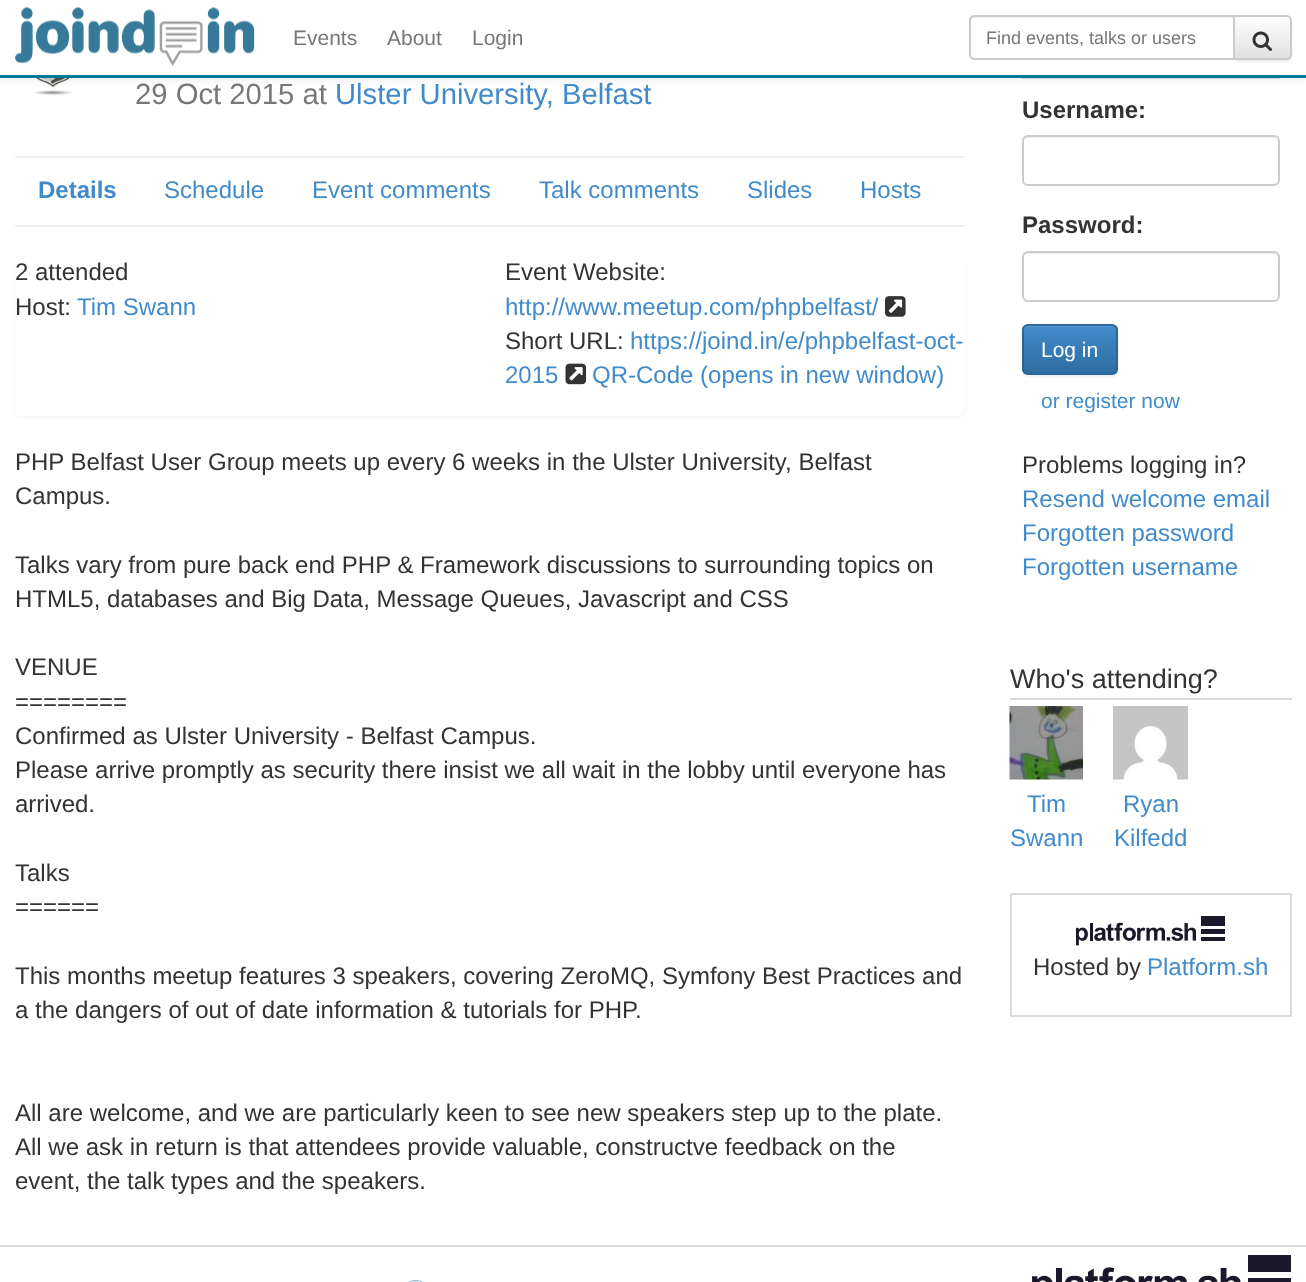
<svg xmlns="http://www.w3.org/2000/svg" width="1306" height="1282">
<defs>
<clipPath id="clip1"><path d="M1233 15h53c3.5 0 6 2.5 6 6v33c0 3.5-2.5 6-6 6h-53z"/></clipPath>
<linearGradient id="g1" gradientUnits="userSpaceOnUse" x1="1262" y1="16" x2="1262" y2="59"><stop offset="0" stop-color="#fff"/><stop offset="1" stop-color="#e0e0e0"/></linearGradient>
<clipPath id="clip2"><rect x="1022" y="324" width="96" height="51" rx="6"/></clipPath>
<linearGradient id="g2" gradientUnits="userSpaceOnUse" x1="1070" y1="326" x2="1070" y2="374"><stop offset="0" stop-color="#428bca"/><stop offset="1" stop-color="#2d6ca2"/></linearGradient>
</defs>
<rect width="100%" height="100%" fill="#fff"/>
<image x="15" y="78" width="75" height="18" href="media/3.png"/>
<rect x="1022" y="78" width="258" height="1" fill="#d7dcdf"/>
<rect y="2" width="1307" height="78" fill="#00000012" filter="blur(4px)"/>
<rect width="1306" height="75" fill="#fff"/>
<rect y="75" width="1306" height="3" fill="#007b97"/>
<image x="15" y="7" width="240" height="60" href="media/1.png"/>
<text x="293" y="45" style="font-family:Liberation Sans;font-size:21px;fill:#777">Events</text>
<text x="387" y="45" style="font-family:Liberation Sans;font-size:21px;fill:#777">About</text>
<text x="472" y="45" style="font-family:Liberation Sans;font-size:21px;fill:#777">Login</text>
<rect x="1233" y="17" width="59" height="45" rx="6" fill="#00000012" filter="blur(1px)"/>
<g clip-path="url(#clip1)">
<rect x="1235" y="17" width="57" height="42" fill="url(#g1)"/>
</g>
<path d="M1234 16h52c3 0 5 2 5 5v33c0 3-2 5-5 5h-52z" fill="none" stroke="#ccc" stroke-width="2"/>
<path d="M974 15h261v45h-261c-3 0-5-2-5-5v-35c0-3 2-5 5-5z" fill="#fff"/>
<path d="M974 18h259v-1h-259c-1 0-2 1-3 2z" fill="#ececec"/>
<path d="M974 16h260v43h-260c-2 0-4-2-4-4v-35c0-2 2-4 4-4z" fill="none" stroke="#ccc" stroke-width="2"/>
<text x="986" y="44" style="font-family:Liberation Sans;font-size:18px;fill:#777">Find events, talks or users</text>
<image x="1252" y="31" width="20" height="20" href="media/2.png"/>
<rect x="15" y="225" width="950" height="2" fill="#eee"/>
<text x="135" y="104" style="font-family:Liberation Sans;font-size:29.25px;fill:#777">29 Oct 2015 at</text>
<text x="335" y="104" style="font-family:Liberation Sans;font-size:29.25px;fill:#428bca">Ulster University, Belfast</text>
<rect x="15" y="156" width="950" height="2" fill="#eee"/>
<text x="38" y="198" style="font-family:Liberation Sans;font-size:24px;font-weight:bold;fill:#428bca">Details</text>
<text x="164" y="198" style="font-family:Liberation Sans;font-size:24px;fill:#428bca">Schedule</text>
<text x="312" y="198" style="font-family:Liberation Sans;font-size:24px;fill:#428bca">Event comments</text>
<text x="539" y="198" style="font-family:Liberation Sans;font-size:24px;fill:#428bca">Talk comments</text>
<text x="747" y="198" style="font-family:Liberation Sans;font-size:24px;fill:#428bca">Slides</text>
<text x="860" y="198" style="font-family:Liberation Sans;font-size:24px;fill:#428bca">Hosts</text>
<rect x="15" y="258" width="950" height="159" rx="6" fill="#0000000d" filter="blur(1.5px)"/>
<rect x="15" y="257" width="950" height="159" rx="6" fill="#fff"/>
<text x="15" y="280" style="font-family:Liberation Sans;font-size:24px;fill:#333">2 attended</text>
<text x="15" y="315" style="font-family:Liberation Sans;font-size:24px;fill:#333">Host:</text>
<text x="77" y="315" style="font-family:Liberation Sans;font-size:24px;fill:#428bca">Tim Swann</text>
<text x="505" y="280" style="font-family:Liberation Sans;font-size:24px;fill:#333">Event Website:</text>
<text x="505" y="315" style="font-family:Liberation Sans;font-size:24px;fill:#428bca">http://www.meetup.com/phpbelfast/</text>
<image x="885" y="296" width="21" height="21" href="media/4.png"/>
<text x="505" y="349" style="font-family:Liberation Sans;font-size:24px;fill:#333">Short URL:</text>
<text x="630" y="349" style="font-family:Liberation Sans;font-size:24px;fill:#428bca">https://joind.in/e/phpbelfast-oct-</text>
<text x="505" y="383" style="font-family:Liberation Sans;font-size:24px;fill:#428bca">2015</text>
<image x="565" y="363" width="22" height="22" href="media/5.png"/>
<text x="592" y="383" style="font-family:Liberation Sans;font-size:24px;fill:#428bca">QR-Code (opens in new window)</text>
<text x="15" y="470" style="font-family:Liberation Sans;font-size:24px;fill:#333">PHP Belfast User Group meets up every 6 weeks in the Ulster University, Belfast</text>
<text x="15" y="504" style="font-family:Liberation Sans;font-size:24px;fill:#333">Campus.</text>
<text x="15" y="573" style="font-family:Liberation Sans;font-size:24px;fill:#333">Talks vary from pure back end PHP &amp; Framework discussions to surrounding topics on</text>
<text x="15" y="607" style="font-family:Liberation Sans;font-size:24px;fill:#333">HTML5, databases and Big Data, Message Queues, Javascript and CSS</text>
<text x="15" y="675" style="font-family:Liberation Sans;font-size:24px;fill:#333">VENUE</text>
<text x="15" y="710" style="font-family:Liberation Sans;font-size:24px;fill:#333">========</text>
<text x="15" y="744" style="font-family:Liberation Sans;font-size:24px;fill:#333">Confirmed as Ulster University - Belfast Campus.</text>
<text x="15" y="778" style="font-family:Liberation Sans;font-size:24px;fill:#333">Please arrive promptly as security there insist we all wait in the lobby until everyone has</text>
<text x="15" y="812" style="font-family:Liberation Sans;font-size:24px;fill:#333">arrived.</text>
<text x="15" y="881" style="font-family:Liberation Sans;font-size:24px;fill:#333">Talks</text>
<text x="15" y="915" style="font-family:Liberation Sans;font-size:24px;fill:#333">======</text>
<text x="15" y="984" style="font-family:Liberation Sans;font-size:24px;fill:#333">This months meetup features 3 speakers, covering ZeroMQ, Symfony Best Practices and</text>
<text x="15" y="1018" style="font-family:Liberation Sans;font-size:24px;fill:#333">a the dangers of out of date information &amp; tutorials for PHP.</text>
<text x="15" y="1121" style="font-family:Liberation Sans;font-size:24px;fill:#333">All are welcome, and we are particularly keen to see new speakers step up to the plate.</text>
<text x="15" y="1155" style="font-family:Liberation Sans;font-size:24px;fill:#333">All we ask in return is that attendees provide valuable, constructve feedback on the</text>
<text x="15" y="1189" style="font-family:Liberation Sans;font-size:24px;fill:#333">event, the talk types and the speakers.</text>
<text x="1022" y="118" style="font-family:Liberation Sans;font-size:24px;font-weight:bold;fill:#333">Username:</text>
<path d="M1028 138h246c2 0 4 2 4 4c0-3-2-5-5-5h-245c-3 0-5 2-5 5c0-2 2-4 5-4z" fill="#ececec"/>
<rect x="1023" y="136" width="256" height="49" rx="5" fill="none" stroke="#ccc" stroke-width="2"/>
<text x="1022" y="233" style="font-family:Liberation Sans;font-size:24px;font-weight:bold;fill:#333">Password:</text>
<path d="M1028 254h246c2 0 4 2 4 4v-1c0-3-2-5-5-5h-245c-3 0-5 2-5 5v1c0-2 2-4 5-4z" fill="#ececec"/>
<rect x="1023" y="252" width="256" height="49" rx="5" fill="none" stroke="#ccc" stroke-width="2"/>
<rect x="1022" y="326" width="96" height="51" rx="6" fill="#00000012" filter="blur(1px)"/>
<g clip-path="url(#clip2)">
<rect x="1022" y="326" width="96" height="48" fill="url(#g2)"/>
</g>
<path d="M1028 327h84c2 0 4 2 4 5c0-9-13-6-19-6h-55c-6 0-19-3-19 6c0-3 2-5 5-5z" fill="#5e9cd2"/>
<rect x="1023" y="325" width="94" height="49" rx="5" fill="none" stroke="#2b669a" stroke-width="2"/>
<text x="1041" y="357" style="font-family:Liberation Sans;font-size:21px;fill:#fff">Log in</text>
<text x="1041" y="408" style="font-family:Liberation Sans;font-size:21px;fill:#428bca">or register now</text>
<text x="1022" y="473" style="font-family:Liberation Sans;font-size:24px;fill:#333">Problems logging in?</text>
<text x="1022" y="507" style="font-family:Liberation Sans;font-size:24px;fill:#428bca">Resend welcome email</text>
<text x="1022" y="541" style="font-family:Liberation Sans;font-size:24px;fill:#428bca">Forgotten password</text>
<text x="1022" y="575" style="font-family:Liberation Sans;font-size:24px;fill:#428bca">Forgotten username</text>
<rect x="1010" y="698" width="282" height="2" fill="#d7dcdf"/>
<text x="1010" y="688" style="font-family:Liberation Sans;font-size:27px;fill:#333">Who's attending?</text>
<image x="1009" y="706" width="74" height="74" href="media/6.png"/>
<text x="1027" y="812" style="font-family:Liberation Sans;font-size:24px;fill:#428bca">Tim</text>
<text x="1010" y="846" style="font-family:Liberation Sans;font-size:24px;fill:#428bca">Swann</text>
<image x="1113" y="706" width="75" height="74" href="media/7.png"/>
<text x="1123" y="812" style="font-family:Liberation Sans;font-size:24px;fill:#428bca">Ryan</text>
<text x="1114" y="846" style="font-family:Liberation Sans;font-size:24px;fill:#428bca">Kilfedd</text>
<rect x="1011" y="894" width="280" height="122" fill="none" stroke="#d7dcdf" stroke-width="2"/>
<image x="1076" y="916" width="149" height="30" href="media/8.png"/>
<text x="1033" y="975" style="font-family:Liberation Sans;font-size:24px;fill:#333">Hosted by</text>
<text x="1147" y="975" style="font-family:Liberation Sans;font-size:24px;fill:#428bca">Platform.sh</text>
<rect y="1245" width="1306" height="2" fill="#d7dcdf"/>
<image x="409" y="1279" width="13" height="3" href="media/9.png"/>
<image x="1032" y="1255" width="259" height="27" href="media/10.png"/>
</svg>
